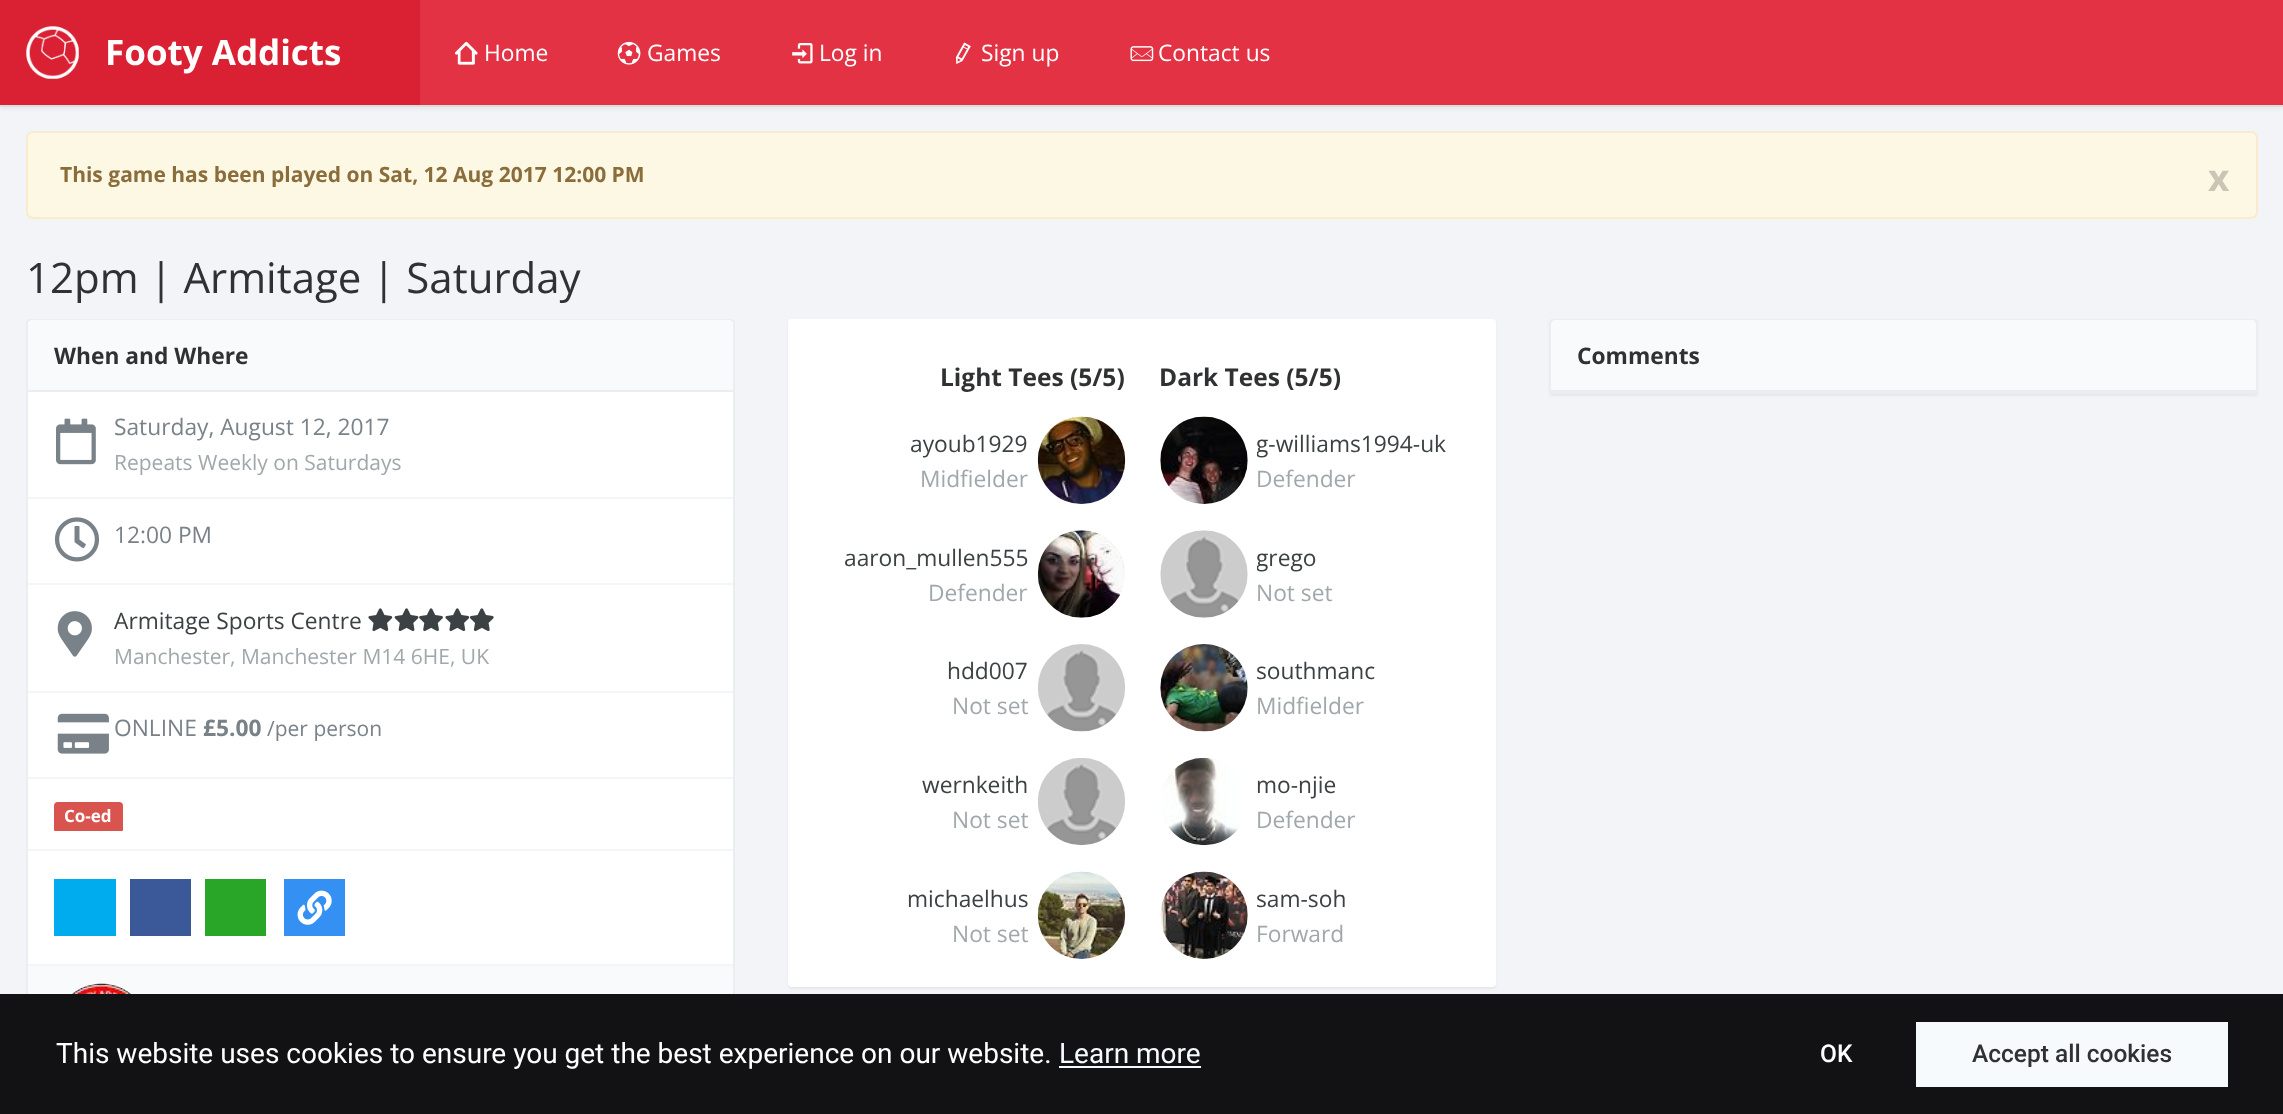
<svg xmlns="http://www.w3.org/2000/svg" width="2283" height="1114">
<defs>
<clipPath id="clip1"><rect x="54" y="796" width="653" height="35"/></clipPath>
<clipPath id="clip2"><rect x="1257" y="425" width="211" height="35"/></clipPath>
<clipPath id="clip3"><rect x="1257" y="539" width="211" height="35"/></clipPath>
<clipPath id="clip4"><rect x="1257" y="653" width="211" height="35"/></clipPath>
<clipPath id="clip5"><rect x="1257" y="880" width="211" height="35"/></clipPath>
</defs>
<rect width="100%" height="100%" fill="#f2f4f8"/>
<path d="M0 105v2h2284v-105v103z" fill="#e6e8ec"/>
<rect y="4" width="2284" height="105" fill="#0000000d" filter="blur(2px)"/>
<rect x="420" width="1863" height="105" fill="#e33244"/>
<rect width="420" height="105" fill="#da2134"/>
<image x="26" y="26" width="53" height="53" href="media/1.png"/>
<text x="105" y="65" style="font-family:Open Sans;font-size:35px;font-weight:bold;fill:#fff">Footy Addicts</text>
<image x="455" y="41" width="23" height="24" href="media/2.png"/>
<text x="484" y="61" style="font-family:Open Sans;font-size:22.75px;fill:#fff">Home</text>
<image x="617" y="41" width="24" height="24" href="media/3.png"/>
<text x="647" y="61" style="font-family:Open Sans;font-size:22.75px;fill:#fff">Games</text>
<image x="792" y="43" width="21" height="21" href="media/4.png"/>
<text x="819" y="61" style="font-family:Open Sans;font-size:22.75px;fill:#fff">Log in</text>
<image x="955" y="42" width="16" height="22" href="media/5.png"/>
<text x="981" y="61" style="font-family:Open Sans;font-size:22.75px;fill:#fff">Sign up</text>
<image x="1130" y="46" width="24" height="16" href="media/6.png"/>
<text x="1158" y="61" style="font-family:Open Sans;font-size:22.75px;fill:#fff">Contact us</text>
<rect x="26" y="131" width="2232" height="88" rx="7" fill="#fcf8e3"/>
<path d="M33 135h2217c3 0 6 2 6 5v-2c0-3-2-5-5-5h-2218c-3 0-5 2-5 5v2c0-3 2-5 5-5z" fill="#fdf9e9"/>
<rect x="27" y="132" width="2230" height="86" rx="6" fill="none" stroke="#faebcc" stroke-width="2"/>
<text x="60" y="182" style="font-family:Open Sans;font-size:21px;font-weight:bold;fill:#8a6d3b">This game has been played on Sat, 12 Aug 2017 12:00 PM</text>
<text x="2208" y="191" style="font-family:Open Sans;font-size:37px;font-weight:bold;fill:#cac6b6">x</text>
<text x="26" y="293" style="font-family:Open Sans;font-size:42px;fill:#303132">12pm | Armitage | Saturday</text>
<path d="M30 319h701c2 0 4 2 4 4v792h-709v-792c0-2 2-4 4-4z" fill="#fff"/>
<rect x="27" y="320" width="707" height="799" rx="3" fill="none" stroke="#eaeef1" stroke-width="2"/>
<path d="M32 320h697c2 0 4 2 4 4v68h-705v-68c0-2 2-4 4-4z" fill="#f9fafc"/>
<rect x="28" y="390" width="705" height="2" fill="#eaeef1"/>
<text x="54" y="364" style="font-family:Open Sans;font-size:22.75px;font-weight:bold;fill:#303132">When and Where</text>
<rect x="28" y="497" width="705" height="2" fill="#f3f5f7"/>
<image x="56" y="418" width="40" height="47" href="media/7.png"/>
<text x="114" y="435" style="font-family:Open Sans;font-size:22.75px;fill:#788288">Saturday, August 12, 2017</text>
<text x="114" y="470" style="font-family:Open Sans;font-size:21px;fill:#a1a8ac">Repeats Weekly on Saturdays</text>
<rect x="28" y="583" width="705" height="2" fill="#f3f5f7"/>
<image x="55" y="517" width="44" height="45" href="media/8.png"/>
<text x="114" y="543" style="font-family:Open Sans;font-size:22.75px;fill:#788288">12:00 PM</text>
<rect x="28" y="691" width="705" height="2" fill="#f3f5f7"/>
<image x="57" y="611" width="35" height="46" href="media/9.png"/>
<text x="114" y="629" style="font-family:Open Sans;font-size:22.75px;fill:#3c4144">Armitage Sports Centre</text>
<image x="368" y="608" width="25" height="24" href="media/10.png"/>
<image x="394" y="608" width="25" height="23" href="media/11.png"/>
<image x="419" y="608" width="24" height="24" href="media/12.png"/>
<image x="445" y="608" width="25" height="24" href="media/10.png"/>
<image x="469" y="608" width="25" height="24" href="media/13.png"/>
<text x="114" y="664" style="font-family:Open Sans;font-size:21px;fill:#a1a8ac">Manchester, Manchester M14 6HE, UK</text>
<rect x="28" y="777" width="705" height="2" fill="#f3f5f7"/>
<image x="57" y="713" width="52" height="41" href="media/14.png"/>
<text x="114" y="736" style="font-family:Open Sans;font-size:22.75px;fill:#788288">ONLINE</text>
<text x="203" y="736" style="font-family:Open Sans;font-size:22.75px;font-weight:bold;fill:#788288">£5.00</text>
<text x="267" y="736" style="font-family:Open Sans;font-size:21px;fill:#788288">/per person</text>
<rect x="28" y="849" width="705" height="2" fill="#f3f5f7"/>
<g clip-path="url(#clip1)">
<rect x="54" y="802" width="69" height="31" rx="4" fill="#d9534f"/>
</g>
<text x="64" y="822" style="font-family:Open Sans;font-size:17px;font-weight:bold;fill:#fff">Co-ed</text>
<rect x="28" y="964" width="705" height="2" fill="#f3f5f7"/>
<rect x="54" y="879" width="62" height="57" fill="#00aced"/>
<rect x="130" y="879" width="61" height="57" fill="#3b5998"/>
<rect x="205" y="879" width="61" height="57" fill="#29a628"/>
<rect x="284" y="879" width="61" height="57" fill="#3490f3"/>
<image x="297" y="890" width="35" height="35" href="media/15.png"/>
<rect x="28" y="966" width="705" height="28" fill="#f9fafc"/>
<image x="71" y="983" width="61" height="11" href="media/16.png"/>
<rect x="1549" y="320" width="709" height="76" rx="4" fill="#0000000d" filter="blur(1px)"/>
<rect x="1550" y="320" width="707" height="73" rx="3" fill="none" stroke="#eaeef1" stroke-width="2"/>
<path d="M1555 320h697c2 0 4 2 4 4v68h-705v-68c0-2 2-4 4-4z" fill="#f9fafc"/>
<rect x="1551" y="390" width="705" height="2" fill="#eaeef1"/>
<text x="1577" y="364" style="font-family:Open Sans;font-size:22.75px;font-weight:bold;fill:#303132">Comments</text>
<rect x="788" y="320" width="708" height="669" rx="4" fill="#0000000d" filter="blur(1px)"/>
<rect x="788" y="319" width="708" height="668" rx="4" fill="#fff"/>
<text x="940" y="386" style="font-family:Open Sans;font-size:24.5px;font-weight:bold;fill:#303132">Light Tees (5/5)</text>
<text x="910" y="452" style="font-family:Open Sans;font-size:22.75px;fill:#3c4144">ayoub1929</text>
<image x="1037" y="416" width="89" height="88" href="media/17.png"/>
<text x="920" y="487" style="font-family:Open Sans;font-size:22.75px;fill:#a1a8ac">Midfielder</text>
<text x="844" y="566" style="font-family:Open Sans;font-size:22.75px;fill:#3c4144">aaron_mullen555</text>
<image x="1037" y="530" width="88" height="88" href="media/18.png"/>
<text x="928" y="601" style="font-family:Open Sans;font-size:22.75px;fill:#a1a8ac">Defender</text>
<text x="947" y="679" style="font-family:Open Sans;font-size:22.75px;fill:#3c4144">hdd007</text>
<image x="1038" y="644" width="87" height="88" href="media/19.png"/>
<text x="952" y="714" style="font-family:Open Sans;font-size:22.75px;fill:#a1a8ac">Not set</text>
<text x="922" y="793" style="font-family:Open Sans;font-size:22.75px;fill:#3c4144">wernkeith</text>
<image x="1038" y="758" width="87" height="88" href="media/20.png"/>
<text x="952" y="828" style="font-family:Open Sans;font-size:22.75px;fill:#a1a8ac">Not set</text>
<text x="907" y="907" style="font-family:Open Sans;font-size:22.75px;fill:#3c4144">michaelhus</text>
<image x="1037" y="871" width="89" height="88" href="media/21.png"/>
<text x="952" y="942" style="font-family:Open Sans;font-size:22.75px;fill:#a1a8ac">Not set</text>
<text x="1159" y="386" style="font-family:Open Sans;font-size:24.5px;font-weight:bold;fill:#303132">Dark Tees (5/5)</text>
<image x="1160" y="416" width="88" height="88" href="media/22.png"/>
<g clip-path="url(#clip2)">
<text x="1256" y="452" style="font-family:Open Sans;font-size:22.75px;fill:#3c4144">g-williams1994-uk</text>
</g>
<text x="1256" y="487" style="font-family:Open Sans;font-size:22.75px;fill:#a1a8ac">Defender</text>
<image x="1160" y="530" width="88" height="88" href="media/23.png"/>
<g clip-path="url(#clip3)">
<text x="1256" y="566" style="font-family:Open Sans;font-size:22.75px;fill:#3c4144">grego</text>
</g>
<text x="1256" y="601" style="font-family:Open Sans;font-size:22.75px;fill:#a1a8ac">Not set</text>
<image x="1160" y="644" width="88" height="88" href="media/24.png"/>
<g clip-path="url(#clip4)">
<text x="1256" y="679" style="font-family:Open Sans;font-size:22.75px;fill:#3c4144">southmanc</text>
</g>
<text x="1256" y="714" style="font-family:Open Sans;font-size:22.75px;fill:#a1a8ac">Midfielder</text>
<image x="1162" y="757" width="78" height="89" href="media/25.png"/>
<text x="1256" y="793" style="font-family:Open Sans;font-size:22.75px;fill:#3c4144">mo-njie</text>
<text x="1256" y="828" style="font-family:Open Sans;font-size:22.75px;fill:#a1a8ac">Defender</text>
<image x="1160" y="871" width="88" height="88" href="media/26.png"/>
<g clip-path="url(#clip5)">
<text x="1256" y="907" style="font-family:Open Sans;font-size:22.75px;fill:#3c4144">sam-soh</text>
</g>
<text x="1256" y="942" style="font-family:Open Sans;font-size:22.75px;fill:#a1a8ac">Forward</text>
<rect y="994" width="2283" height="120" fill="#121214"/>
<text x="56" y="1063" style="font-family:Roboto;font-size:28px;fill:#fff">This website uses cookies to ensure you get the best experience on our website.</text>
<text x="1059" y="1063" style="font-family:Roboto;font-size:28px;fill:#f7fafc">Learn more</text>
<rect x="1059" y="1066" width="142" height="2" fill="#f7fafc"/>
<text x="1820" y="1062" style="font-family:Roboto;font-size:24.5px;font-weight:500;fill:#fff">OK</text>
<rect x="1916" y="1022" width="312" height="65" fill="#f7fafc"/>
<text x="1972" y="1062" style="font-family:Roboto;font-size:24.5px;font-weight:500;fill:#303132">Accept all cookies</text>
</svg>
